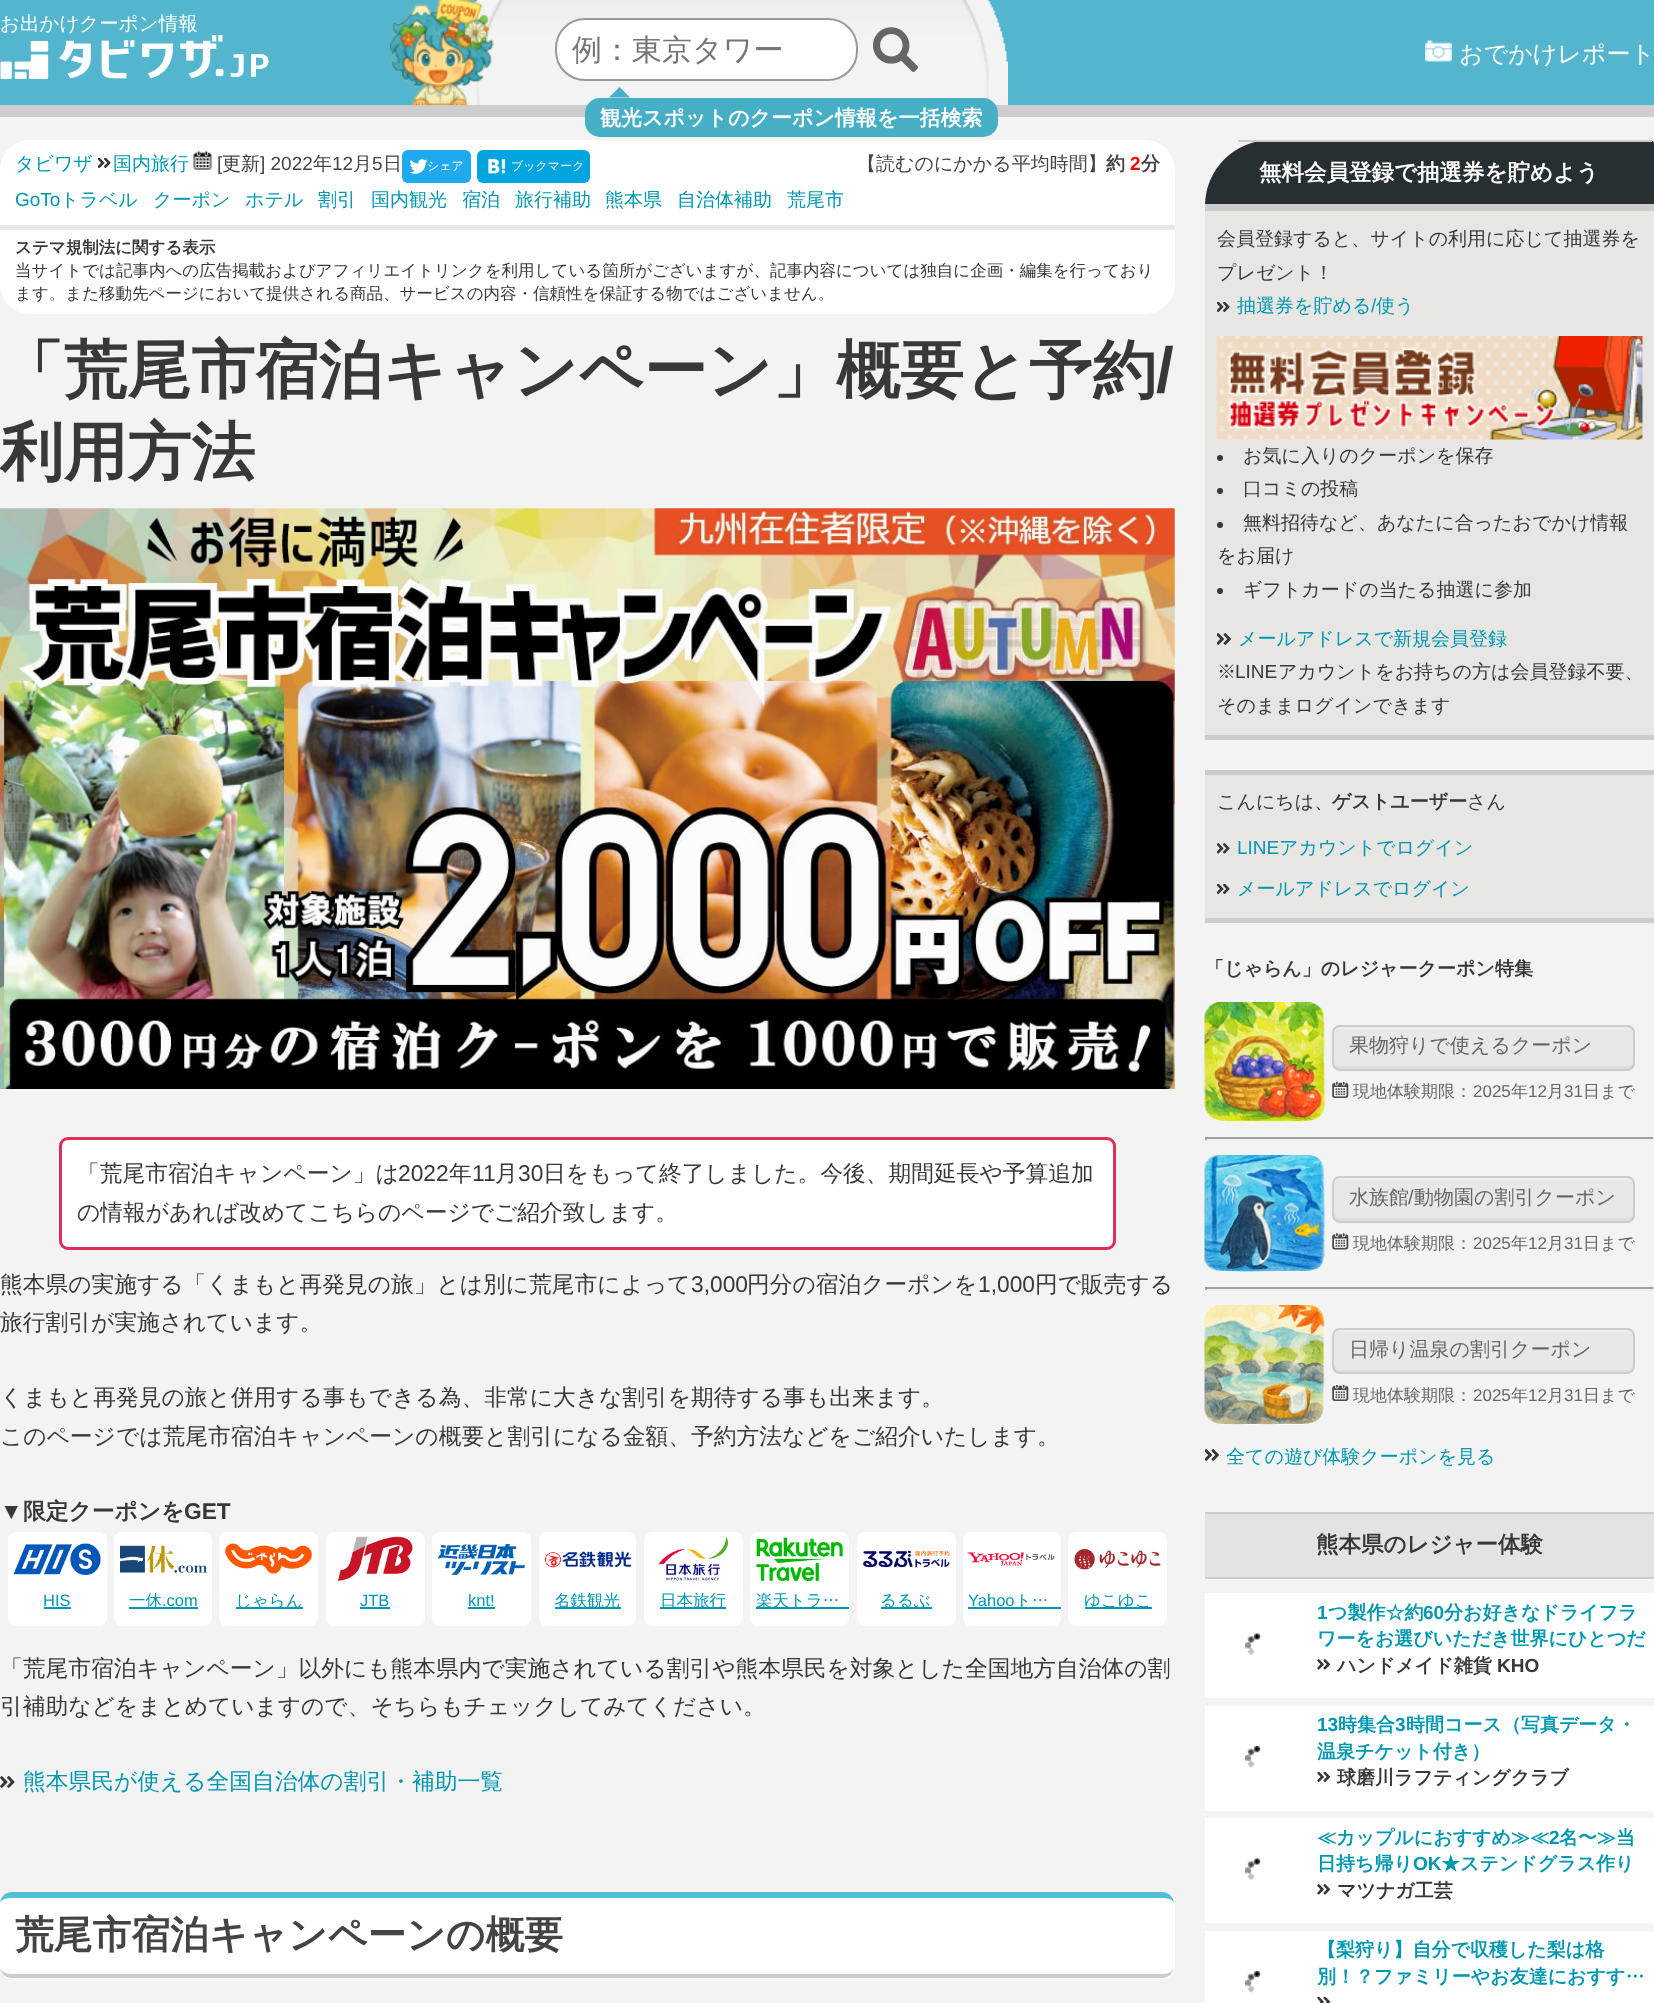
<svg xmlns="http://www.w3.org/2000/svg" width="1654" height="2003">
<rect width="100%" height="100%" fill="#f3f3f3"/>
<rect width="1654" height="105" fill="#53b6ce"/>
<rect y="105" width="1654" height="12" fill="#cecece"/>
<text x="0" y="30" style="font-family:WenQuanYi Zen Hei;font-size:19.5px;font-weight:500;fill:#fff">お出かけクーポン情報</text>
<image x="0" y="35" width="269" height="44" href="media/1.png"/>
<image x="390" y="0" width="618" height="105" href="media/2.png"/>
<rect x="556" y="19" width="301" height="61" rx="29" fill="#fff" stroke="#999" stroke-width="2"/>
<text x="572" y="60" style="font-family:WenQuanYi Zen Hei;font-size:30px;font-weight:500;fill:#757575">例：東京タワー</text>
<image x="873" y="27" width="45" height="45" href="media/3.png"/>
<rect x="585" y="98" width="413" height="39" rx="15" fill="#46afc5"/>
<path d="M630 97.5h-21l10.5-10.5z" fill="#46afc5"/>
<text x="600" y="125" style="font-family:WenQuanYi Zen Hei;font-size:21px;font-weight:bold;fill:#fff">観光スポットのクーポン情報を一括検索</text>
<image x="1425" y="40" width="27" height="22" href="media/4.png"/>
<text x="1459" y="62" style="font-family:WenQuanYi Zen Hei;font-size:24px;font-weight:500;fill:#fff">おでかけレポート</text>
<path d="M30 140h1115c16.5 0 30 13.5 30 30v60h-1175v-60c0-16.5 13.5-30 30-30z" fill="#fff"/>
<rect y="225" width="1175" height="5" fill="#e7e7e7"/>
<text x="15" y="170" style="font-family:WenQuanYi Zen Hei;font-size:19px;font-weight:500;fill:#0097b2">タビワザ</text>
<image x="98" y="158" width="13" height="11" href="media/5.png"/>
<text x="113" y="170" style="font-family:WenQuanYi Zen Hei;font-size:19px;font-weight:500;fill:#0097b2">国内旅行</text>
<image x="193" y="151" width="19" height="19" href="media/6.png"/>
<text x="217" y="170" style="font-family:Liberation Sans;font-size:19px;fill:#444">[</text>
<text x="222" y="170" style="font-family:WenQuanYi Zen Hei;font-size:19px;font-weight:500;fill:#444">更新</text>
<text x="260" y="170" style="font-family:Liberation Sans;font-size:19px;fill:#444">] 2022</text>
<text x="313" y="170" style="font-family:WenQuanYi Zen Hei;font-size:19px;font-weight:500;fill:#444">年</text>
<text x="332" y="170" style="font-family:Liberation Sans;font-size:19px;fill:#444">12</text>
<text x="353" y="170" style="font-family:WenQuanYi Zen Hei;font-size:19px;font-weight:500;fill:#444">月</text>
<text x="372" y="170" style="font-family:Liberation Sans;font-size:19px;fill:#444">5</text>
<text x="383" y="170" style="font-family:WenQuanYi Zen Hei;font-size:19px;font-weight:500;fill:#444">日</text>
<rect x="402" y="150" width="69" height="33" rx="6" fill="#1fa9ee"/>
<image x="410" y="159" width="18" height="15" href="media/7.png"/>
<text x="427" y="170" style="font-family:WenQuanYi Zen Hei;font-size:12px;font-weight:500;fill:#fff">シェア</text>
<rect x="477" y="150" width="113" height="33" rx="6" fill="#00a4de"/>
<image x="488" y="159" width="18" height="15" href="media/8.png"/>
<text x="511" y="170" style="font-family:WenQuanYi Zen Hei;font-size:12px;font-weight:500;fill:#fff">ブックマーク</text>
<text x="857" y="170" style="font-family:WenQuanYi Zen Hei;font-size:19px;font-weight:500;fill:#444">【読むのにかかる平均時間】</text>
<text x="1106" y="170" style="font-family:WenQuanYi Zen Hei;font-size:19px;font-weight:bold;fill:#444">約</text>
<text x="1130" y="170" style="font-family:Liberation Sans;font-size:19px;font-weight:bold;fill:#f00">2</text>
<text x="1141" y="170" style="font-family:WenQuanYi Zen Hei;font-size:19px;font-weight:bold;fill:#444">分</text>
<text x="15" y="206" style="font-family:Liberation Sans;font-size:19px;fill:#0097b2">GoTo</text>
<text x="60" y="206" style="font-family:WenQuanYi Zen Hei;font-size:19px;font-weight:500;fill:#0097b2">トラベル</text>
<text x="153" y="206" style="font-family:WenQuanYi Zen Hei;font-size:19px;font-weight:500;fill:#0097b2">クーポン</text>
<text x="245" y="206" style="font-family:WenQuanYi Zen Hei;font-size:19px;font-weight:500;fill:#0097b2">ホテル</text>
<text x="318" y="206" style="font-family:WenQuanYi Zen Hei;font-size:19px;font-weight:500;fill:#0097b2">割引</text>
<text x="371" y="206" style="font-family:WenQuanYi Zen Hei;font-size:19px;font-weight:500;fill:#0097b2">国内観光</text>
<text x="462" y="206" style="font-family:WenQuanYi Zen Hei;font-size:19px;font-weight:500;fill:#0097b2">宿泊</text>
<text x="515" y="206" style="font-family:WenQuanYi Zen Hei;font-size:19px;font-weight:500;fill:#0097b2">旅行補助</text>
<text x="605" y="206" style="font-family:WenQuanYi Zen Hei;font-size:19px;font-weight:500;fill:#0097b2">熊本県</text>
<text x="677" y="206" style="font-family:WenQuanYi Zen Hei;font-size:19px;font-weight:500;fill:#0097b2">自治体補助</text>
<text x="787" y="206" style="font-family:WenQuanYi Zen Hei;font-size:19px;font-weight:500;fill:#0097b2">荒尾市</text>
<path d="M0 230h1175v54c0 16.5-13.5 30-30 30h-1115c-16.5 0-30-13.5-30-30z" fill="#fff"/>
<text x="15" y="253" style="font-family:WenQuanYi Zen Hei;font-size:16.5px;font-weight:bold;fill:#383838">ステマ規制法に関する表示</text>
<text x="15" y="276" style="font-family:WenQuanYi Zen Hei;font-size:16.5px;font-weight:500;fill:#383838">当サイトでは記事内への広告掲載およびアフィリエイトリンクを利用している箇所がございますが、記事内容については独自に企画・編集を行っており</text>
<text x="15" y="299" style="font-family:WenQuanYi Zen Hei;font-size:16.5px;font-weight:500;fill:#383838">ます。また移動先ページにおいて提供される商品、サービスの内容・信頼性を保証する物ではございません。</text>
<text x="0" y="392" style="font-family:WenQuanYi Zen Hei;font-size:63.75px;font-weight:bold;fill:#383838">「荒尾市宿泊キャンペーン」概要と予約</text>
<text x="1156" y="392" style="font-family:Liberation Sans;font-size:63.75px;font-weight:bold;fill:#383838">/</text>
<text x="0" y="474" style="font-family:WenQuanYi Zen Hei;font-size:63.75px;font-weight:bold;fill:#383838">利用方法</text>
<image x="0" y="508" width="1175" height="581" href="media/9.png"/>
<image x="0" y="508" width="1175" height="581" href="media/10.png"/>
<rect x="60.5" y="1138.5" width="1054" height="110" rx="7.5" fill="#fff" stroke="#e02d57" stroke-width="3"/>
<text x="77" y="1181" style="font-family:WenQuanYi Zen Hei;font-size:22.75px;font-weight:500;fill:#383838">「荒尾市宿泊キャンペーン」は</text>
<text x="398" y="1181" style="font-family:Liberation Sans;font-size:22.75px;fill:#383838">2022</text>
<text x="449" y="1181" style="font-family:WenQuanYi Zen Hei;font-size:22.75px;font-weight:500;fill:#383838">年</text>
<text x="472" y="1181" style="font-family:Liberation Sans;font-size:22.75px;fill:#383838">11</text>
<text x="495" y="1181" style="font-family:WenQuanYi Zen Hei;font-size:22.75px;font-weight:500;fill:#383838">月</text>
<text x="518" y="1181" style="font-family:Liberation Sans;font-size:22.75px;fill:#383838">30</text>
<text x="543" y="1181" style="font-family:WenQuanYi Zen Hei;font-size:22.75px;font-weight:500;fill:#383838">日をもって終了しました。今後、期間延長や予算追加</text>
<text x="77" y="1220" style="font-family:WenQuanYi Zen Hei;font-size:22.75px;font-weight:500;fill:#383838">の情報があれば改めてこちらのページでご紹介致します。</text>
<text x="0" y="1292" style="font-family:WenQuanYi Zen Hei;font-size:22.75px;font-weight:500;fill:#383838">熊本県の実施する「くまもと再発見の旅」とは別に荒尾市によって</text>
<text x="691" y="1292" style="font-family:Liberation Sans;font-size:22.75px;fill:#383838">3,000</text>
<text x="747" y="1292" style="font-family:WenQuanYi Zen Hei;font-size:22.75px;font-weight:500;fill:#383838">円分の宿泊クーポンを</text>
<text x="978" y="1292" style="font-family:Liberation Sans;font-size:22.75px;fill:#383838">1,000</text>
<text x="1035" y="1292" style="font-family:WenQuanYi Zen Hei;font-size:22.75px;font-weight:500;fill:#383838">円で販売する</text>
<text x="0" y="1330" style="font-family:WenQuanYi Zen Hei;font-size:22.75px;font-weight:500;fill:#383838">旅行割引が実施されています。</text>
<text x="0" y="1405" style="font-family:WenQuanYi Zen Hei;font-size:22.75px;font-weight:500;fill:#383838">くまもと再発見の旅と併用する事もできる為、非常に大きな割引を期待する事も出来ます。</text>
<text x="0" y="1444" style="font-family:WenQuanYi Zen Hei;font-size:22.75px;font-weight:500;fill:#383838">このページでは荒尾市宿泊キャンペーンの概要と割引になる金額、予約方法などをご紹介いたします。</text>
<text x="0" y="1519" style="font-family:Liberation Sans;font-size:22.75px;font-weight:bold;fill:#383838">▼</text>
<text x="23" y="1519" style="font-family:WenQuanYi Zen Hei;font-size:22.75px;font-weight:bold;fill:#383838">限定クーポンを</text>
<text x="184" y="1519" style="font-family:Liberation Sans;font-size:22.75px;font-weight:bold;fill:#383838">GET</text>
<rect x="8" y="1532" width="99" height="94" rx="8" fill="#fff"/>
<image x="13" y="1543" width="88" height="32" href="media/11.png"/>
<text x="43" y="1606" style="font-family:Liberation Sans;font-size:16.5px;fill:#0097b2">HIS</text>
<rect x="44" y="1607" width="27" height="2" fill="#0097b2"/>
<rect x="114" y="1532" width="98" height="94" rx="8" fill="#fff"/>
<image x="120" y="1545" width="87" height="28" href="media/12.png"/>
<rect x="129" y="1607" width="69" height="2" fill="#0097b2"/>
<text x="129" y="1606" style="font-family:WenQuanYi Zen Hei;font-size:16.5px;font-weight:500;fill:#0097b2">一休</text>
<text x="162" y="1606" style="font-family:Liberation Sans;font-size:16.5px;fill:#0097b2">.com</text>
<rect x="219" y="1532" width="99" height="94" rx="8" fill="#fff"/>
<image x="225" y="1543" width="87" height="31" href="media/13.png"/>
<rect x="236" y="1607" width="67" height="2" fill="#0097b2"/>
<text x="235" y="1606" style="font-family:WenQuanYi Zen Hei;font-size:16.5px;font-weight:500;fill:#0097b2">じゃらん</text>
<rect x="326" y="1532" width="99" height="94" rx="8" fill="#fff"/>
<image x="337" y="1536" width="76" height="45" href="media/14.png"/>
<text x="360" y="1606" style="font-family:Liberation Sans;font-size:16.5px;fill:#0097b2">JTB</text>
<rect x="360" y="1607" width="30" height="2" fill="#0097b2"/>
<rect x="432" y="1532" width="99" height="94" rx="8" fill="#fff"/>
<image x="438" y="1543" width="87" height="32" href="media/15.png"/>
<text x="468" y="1606" style="font-family:Liberation Sans;font-size:16.5px;fill:#0097b2">knt!</text>
<rect x="468" y="1607" width="27" height="2" fill="#0097b2"/>
<rect x="539" y="1532" width="97" height="94" rx="8" fill="#fff"/>
<image x="544" y="1551" width="88" height="17" href="media/16.png"/>
<rect x="555" y="1607" width="66" height="2" fill="#0097b2"/>
<text x="554" y="1606" style="font-family:WenQuanYi Zen Hei;font-size:16.5px;font-weight:500;fill:#0097b2">名鉄観光</text>
<rect x="644" y="1532" width="99" height="94" rx="8" fill="#fff"/>
<image x="658" y="1536" width="71" height="45" href="media/17.png"/>
<rect x="660" y="1607" width="66" height="2" fill="#0097b2"/>
<text x="660" y="1606" style="font-family:WenQuanYi Zen Hei;font-size:16.5px;font-weight:500;fill:#0097b2">日本旅行</text>
<rect x="750" y="1532" width="99" height="94" rx="8" fill="#fff"/>
<image x="756" y="1537" width="87" height="44" href="media/18.png"/>
<rect x="756" y="1607" width="93" height="2" fill="#0097b2"/>
<text x="756" y="1606" style="font-family:WenQuanYi Zen Hei;font-size:16.5px;font-weight:500;fill:#0097b2">楽天トラ…</text>
<rect x="857" y="1532" width="99" height="94" rx="8" fill="#fff"/>
<image x="863" y="1550" width="87" height="18" href="media/19.png"/>
<rect x="881" y="1607" width="51" height="2" fill="#0097b2"/>
<text x="880" y="1606" style="font-family:WenQuanYi Zen Hei;font-size:16.5px;font-weight:500;fill:#0097b2">るるぶ</text>
<rect x="963" y="1532" width="98" height="94" rx="8" fill="#fff"/>
<image x="967" y="1552" width="88" height="14" href="media/20.png"/>
<text x="968" y="1606" style="font-family:Liberation Sans;font-size:16.5px;fill:#0097b2">Yahoo</text>
<rect x="968" y="1607" width="93" height="2" fill="#0097b2"/>
<text x="1015" y="1606" style="font-family:WenQuanYi Zen Hei;font-size:16.5px;font-weight:500;fill:#0097b2">ト…</text>
<rect x="1068" y="1532" width="99" height="94" rx="8" fill="#fff"/>
<image x="1074" y="1548" width="87" height="22" href="media/21.png"/>
<rect x="1085" y="1607" width="67" height="2" fill="#0097b2"/>
<text x="1084" y="1606" style="font-family:WenQuanYi Zen Hei;font-size:16.5px;font-weight:500;fill:#0097b2">ゆこゆこ</text>
<text x="0" y="1676" style="font-family:WenQuanYi Zen Hei;font-size:22.75px;font-weight:500;fill:#383838">「荒尾市宿泊キャンペーン」以外にも熊本県内で実施されている割引や熊本県民を対象とした全国地方自治体の割</text>
<text x="0" y="1714" style="font-family:WenQuanYi Zen Hei;font-size:22.75px;font-weight:500;fill:#383838">引補助などをまとめていますので、そちらもチェックしてみてください。</text>
<image x="0" y="1776" width="15" height="12" href="media/22.png"/>
<text x="23" y="1789" style="font-family:WenQuanYi Zen Hei;font-size:22.75px;font-weight:500;fill:#0097b2">熊本県民が使える全国自治体の割引・補助一覧</text>
<rect y="1892" width="1175" height="87" rx="12" fill="#fff"/>
<path d="M12 1892c-7 0-12 5-12 12c0-4 5-6 12-6h1150c7 0 12 2 12 6c0-7-5-12-12-12z" fill="#52c0d4"/>
<path d="M1162 1978c7 0 12-5 12-12c0 5-5 8-12 8h-1150c-7 0-12-3-12-8c0 7 5 12 12 12z" fill="#ccc"/>
<text x="15" y="1948" style="font-family:WenQuanYi Zen Hei;font-size:38.75px;font-weight:bold;fill:#444">荒尾市宿泊キャンペーンの概要</text>
<path d="M1271 140h378c3.5 0 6 2.5 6 6v60h-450c0-36.5 29.5-66 66-66z" fill="#272f32"/>
<rect x="1238" y="140" width="414" height="2" fill="#ccc"/>
<rect x="1205" y="204" width="449" height="7" fill="#ccc"/>
<text x="1259" y="180" style="font-family:WenQuanYi Zen Hei;font-size:22.5px;font-weight:bold;fill:#fff">無料会員登録で抽選券を貯めよう</text>
<rect x="1205" y="211" width="449" height="524" fill="#e8e6e3"/>
<rect x="1205" y="735" width="449" height="5" fill="#ccc"/>
<text x="1217" y="245" style="font-family:WenQuanYi Zen Hei;font-size:19px;font-weight:500;fill:#383838">会員登録すると、サイトの利用に応じて抽選券を</text>
<text x="1217" y="279" style="font-family:WenQuanYi Zen Hei;font-size:19px;font-weight:500;fill:#383838">プレゼント！</text>
<image x="1217" y="302" width="13" height="11" href="media/23.png"/>
<text x="1237" y="312" style="font-family:WenQuanYi Zen Hei;font-size:19px;font-weight:500;fill:#0097b2">抽選券を貯める</text>
<text x="1371" y="312" style="font-family:Liberation Sans;font-size:19px;fill:#0097b2">/</text>
<text x="1376" y="312" style="font-family:WenQuanYi Zen Hei;font-size:19px;font-weight:500;fill:#0097b2">使う</text>
<image x="1216" y="336" width="427" height="104" href="media/24.png"/>
<circle cx="1220" cy="458" r="3" fill="#383838"/>
<text x="1243" y="462" style="font-family:WenQuanYi Zen Hei;font-size:19px;font-weight:500;fill:#383838">お気に入りのクーポンを保存</text>
<circle cx="1220" cy="491" r="3" fill="#383838"/>
<text x="1243" y="495" style="font-family:WenQuanYi Zen Hei;font-size:19px;font-weight:500;fill:#383838">口コミの投稿</text>
<circle cx="1220" cy="525" r="3" fill="#383838"/>
<text x="1243" y="529" style="font-family:WenQuanYi Zen Hei;font-size:19px;font-weight:500;fill:#383838">無料招待など、あなたに合ったおでかけ情報</text>
<text x="1217" y="562" style="font-family:WenQuanYi Zen Hei;font-size:19px;font-weight:500;fill:#383838">をお届け</text>
<circle cx="1220" cy="591" r="3" fill="#383838"/>
<text x="1243" y="596" style="font-family:WenQuanYi Zen Hei;font-size:19px;font-weight:500;fill:#383838">ギフトカードの当たる抽選に参加</text>
<image x="1217" y="633" width="14" height="12" href="media/25.png"/>
<text x="1238" y="645" style="font-family:WenQuanYi Zen Hei;font-size:19px;font-weight:500;fill:#0097b2">メールアドレスで新規会員登録</text>
<text x="1217" y="678" style="font-family:WenQuanYi Zen Hei;font-size:19px;font-weight:500;fill:#383838">※</text>
<text x="1235" y="678" style="font-family:Liberation Sans;font-size:19px;fill:#383838">LINE</text>
<text x="1278" y="678" style="font-family:WenQuanYi Zen Hei;font-size:19px;font-weight:500;fill:#383838">アカウントをお持ちの方は会員登録不要、</text>
<text x="1217" y="712" style="font-family:WenQuanYi Zen Hei;font-size:19px;font-weight:500;fill:#383838">そのままログインできます</text>
<rect x="1205" y="775" width="449" height="143" fill="#e8e6e3"/>
<rect x="1205" y="770" width="449" height="5" fill="#ccc"/>
<rect x="1205" y="918" width="449" height="5" fill="#ccc"/>
<text x="1217" y="808" style="font-family:WenQuanYi Zen Hei;font-size:19px;font-weight:500;fill:#383838">こんにちは、</text>
<text x="1332" y="808" style="font-family:WenQuanYi Zen Hei;font-size:19px;font-weight:bold;fill:#383838">ゲストユーザー</text>
<text x="1467" y="808" style="font-family:WenQuanYi Zen Hei;font-size:19px;font-weight:500;fill:#383838">さん</text>
<image x="1217" y="843" width="13" height="11" href="media/26.png"/>
<text x="1237" y="854" style="font-family:Liberation Sans;font-size:19px;fill:#0097b2">LINE</text>
<text x="1279" y="854" style="font-family:WenQuanYi Zen Hei;font-size:19px;font-weight:500;fill:#0097b2">アカウントでログイン</text>
<image x="1217" y="884" width="13" height="11" href="media/23.png"/>
<text x="1237" y="895" style="font-family:WenQuanYi Zen Hei;font-size:19px;font-weight:500;fill:#0097b2">メールアドレスでログイン</text>
<text x="1205" y="975" style="font-family:WenQuanYi Zen Hei;font-size:19px;font-weight:bold;fill:#383838">「じゃらん」のレジャークーポン特集</text>
<image x="1204" y="1002" width="121" height="120" href="media/27.png"/>
<rect x="1332" y="1025" width="303" height="46" rx="8" fill="#e8e8e8"/>
<path d="M1334 1060v4c0 3 3 6 6 6h288c3 0 6-3 6-6v-4c0 4-3 6-6 6h-288c-4 0-6-2-6-6z" fill="#dcdcdc"/>
<path d="M1340 1029h288c3 0 6 3 6 6v-3c0-3-3-6-6-6h-288c-3 0-6 3-6 6v3c0-3 2-6 6-6z" fill="#ededed"/>
<rect x="1333" y="1026" width="301" height="44" rx="7" fill="none" stroke="#ccc" stroke-width="2"/>
<text x="1349" y="1052" style="font-family:WenQuanYi Zen Hei;font-size:20px;font-weight:500;fill:#666">果物狩りで使えるクーポン</text>
<image x="1332" y="1082" width="17" height="16" href="media/28.png"/>
<text x="1353" y="1097" style="font-family:WenQuanYi Zen Hei;font-size:17px;font-weight:500;fill:#666">現地体験期限：</text>
<text x="1473" y="1097" style="font-family:Liberation Sans;font-size:17px;fill:#666">2025</text>
<text x="1511" y="1097" style="font-family:WenQuanYi Zen Hei;font-size:17px;font-weight:500;fill:#666">年</text>
<text x="1528" y="1097" style="font-family:Liberation Sans;font-size:17px;fill:#666">12</text>
<text x="1547" y="1097" style="font-family:WenQuanYi Zen Hei;font-size:17px;font-weight:500;fill:#666">月</text>
<text x="1564" y="1097" style="font-family:Liberation Sans;font-size:17px;fill:#666">31</text>
<text x="1583" y="1097" style="font-family:WenQuanYi Zen Hei;font-size:17px;font-weight:500;fill:#666">日まで</text>
<rect x="1205" y="1137" width="449" height="2" fill="#9f9f9f"/>
<rect x="1653" y="1137" width="1" height="3" fill="#eee"/>
<rect x="1205" y="1139" width="449" height="2" fill="#eee"/>
<rect x="1205" y="1137" width="2" height="3" fill="#9f9f9f"/>
<image x="1204" y="1155" width="121" height="117" href="media/29.png"/>
<rect x="1332" y="1176" width="303" height="47" rx="8" fill="#e8e8e8"/>
<path d="M1334 1212v3c0 3 3 6 6 6h288c3 0 6-3 6-6v-3c0 3-3 6-6 6h-288c-4 0-6-3-6-6z" fill="#dcdcdc"/>
<path d="M1340 1180h288c3 0 6 3 6 6v-2c0-3-3-6-6-6h-288c-3 0-6 3-6 6v2c0-3 2-6 6-6z" fill="#ededed"/>
<rect x="1333" y="1177" width="301" height="45" rx="7" fill="none" stroke="#ccc" stroke-width="2"/>
<text x="1349" y="1204" style="font-family:WenQuanYi Zen Hei;font-size:20px;font-weight:500;fill:#666">水族館</text>
<text x="1408" y="1204" style="font-family:Liberation Sans;font-size:20px;fill:#666">/</text>
<text x="1414" y="1204" style="font-family:WenQuanYi Zen Hei;font-size:20px;font-weight:500;fill:#666">動物園の割引クーポン</text>
<image x="1332" y="1233" width="17" height="17" href="media/30.png"/>
<text x="1353" y="1249" style="font-family:WenQuanYi Zen Hei;font-size:17px;font-weight:500;fill:#666">現地体験期限：</text>
<text x="1473" y="1249" style="font-family:Liberation Sans;font-size:17px;fill:#666">2025</text>
<text x="1511" y="1249" style="font-family:WenQuanYi Zen Hei;font-size:17px;font-weight:500;fill:#666">年</text>
<text x="1528" y="1249" style="font-family:Liberation Sans;font-size:17px;fill:#666">12</text>
<text x="1547" y="1249" style="font-family:WenQuanYi Zen Hei;font-size:17px;font-weight:500;fill:#666">月</text>
<text x="1564" y="1249" style="font-family:Liberation Sans;font-size:17px;fill:#666">31</text>
<text x="1583" y="1249" style="font-family:WenQuanYi Zen Hei;font-size:17px;font-weight:500;fill:#666">日まで</text>
<rect x="1205" y="1287" width="449" height="2" fill="#9f9f9f"/>
<rect x="1653" y="1287" width="1" height="3" fill="#eee"/>
<rect x="1205" y="1289" width="449" height="2" fill="#eee"/>
<rect x="1205" y="1287" width="2" height="3" fill="#9f9f9f"/>
<image x="1204" y="1305" width="121" height="120" href="media/31.png"/>
<rect x="1332" y="1328" width="303" height="46" rx="8" fill="#e8e8e8"/>
<path d="M1334 1364v3c0 3 3 6 6 6h288c3 0 6-3 6-6v-3c0 3-3 6-6 6h-288c-4 0-6-3-6-6z" fill="#dcdcdc"/>
<path d="M1340 1332h288c3 0 6 3 6 6v-3c0-3-3-6-6-6h-288c-3 0-6 3-6 6v3c0-3 2-6 6-6z" fill="#ededed"/>
<rect x="1333" y="1329" width="301" height="44" rx="7" fill="none" stroke="#ccc" stroke-width="2"/>
<text x="1349" y="1356" style="font-family:WenQuanYi Zen Hei;font-size:20px;font-weight:500;fill:#666">日帰り温泉の割引クーポン</text>
<image x="1332" y="1385" width="17" height="16" href="media/28.png"/>
<text x="1353" y="1401" style="font-family:WenQuanYi Zen Hei;font-size:17px;font-weight:500;fill:#666">現地体験期限：</text>
<text x="1473" y="1401" style="font-family:Liberation Sans;font-size:17px;fill:#666">2025</text>
<text x="1511" y="1401" style="font-family:WenQuanYi Zen Hei;font-size:17px;font-weight:500;fill:#666">年</text>
<text x="1528" y="1401" style="font-family:Liberation Sans;font-size:17px;fill:#666">12</text>
<text x="1547" y="1401" style="font-family:WenQuanYi Zen Hei;font-size:17px;font-weight:500;fill:#666">月</text>
<text x="1564" y="1401" style="font-family:Liberation Sans;font-size:17px;fill:#666">31</text>
<text x="1583" y="1401" style="font-family:WenQuanYi Zen Hei;font-size:17px;font-weight:500;fill:#666">日まで</text>
<image x="1205" y="1449" width="14" height="12" href="media/32.png"/>
<text x="1226" y="1463" style="font-family:WenQuanYi Zen Hei;font-size:19px;font-weight:500;fill:#0097b2">全ての遊び体験クーポンを見る</text>
<path d="M1205 1578v2h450v-66h-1v64z" fill="#fff"/>
<rect x="1205" y="1514" width="449" height="63" fill="#e3e3e3"/>
<rect x="1205" y="1512" width="449" height="2" fill="#ccc"/>
<rect x="1205" y="1577" width="449" height="2" fill="#ccc"/>
<text x="1316" y="1552" style="font-family:WenQuanYi Zen Hei;font-size:22.5px;font-weight:bold;fill:#383838">熊本県のレジャー体験</text>
<rect x="1205" y="1593" width="449" height="105" fill="#fff"/>
<image x="1245" y="1633" width="16" height="22" href="media/33.png"/>
<text x="1317" y="1619" style="font-family:Liberation Sans;font-size:19px;font-weight:bold;fill:#0097b2">1</text>
<text x="1328" y="1619" style="font-family:WenQuanYi Zen Hei;font-size:19px;font-weight:bold;fill:#0097b2">つ製作☆約</text>
<text x="1423" y="1619" style="font-family:Liberation Sans;font-size:19px;font-weight:bold;fill:#0097b2">60</text>
<text x="1444" y="1619" style="font-family:WenQuanYi Zen Hei;font-size:19px;font-weight:bold;fill:#0097b2">分お好きなドライフラ</text>
<text x="1317" y="1645" style="font-family:WenQuanYi Zen Hei;font-size:19px;font-weight:bold;fill:#0097b2">ワーをお選びいただき世界にひとつだ</text>
<image x="1317" y="1659" width="14" height="11" href="media/34.png"/>
<text x="1337" y="1672" style="font-family:WenQuanYi Zen Hei;font-size:19px;font-weight:bold;fill:#383838">ハンドメイド雑貨</text>
<text x="1497" y="1672" style="font-family:Liberation Sans;font-size:19px;font-weight:bold;fill:#383838">KHO</text>
<rect x="1205" y="1706" width="449" height="105" fill="#fff"/>
<image x="1245" y="1746" width="16" height="22" href="media/35.png"/>
<text x="1317" y="1731" style="font-family:Liberation Sans;font-size:19px;font-weight:bold;fill:#0097b2">13</text>
<text x="1338" y="1731" style="font-family:WenQuanYi Zen Hei;font-size:19px;font-weight:bold;fill:#0097b2">時集合</text>
<text x="1395" y="1731" style="font-family:Liberation Sans;font-size:19px;font-weight:bold;fill:#0097b2">3</text>
<text x="1406" y="1731" style="font-family:WenQuanYi Zen Hei;font-size:19px;font-weight:bold;fill:#0097b2">時間コース（写真データ・</text>
<text x="1317" y="1758" style="font-family:WenQuanYi Zen Hei;font-size:19px;font-weight:bold;fill:#0097b2">温泉チケット付き）</text>
<image x="1317" y="1772" width="14" height="11" href="media/36.png"/>
<text x="1337" y="1784" style="font-family:WenQuanYi Zen Hei;font-size:19px;font-weight:bold;fill:#383838">球磨川ラフティングクラブ</text>
<rect x="1205" y="1818" width="449" height="105" fill="#fff"/>
<image x="1245" y="1858" width="16" height="22" href="media/33.png"/>
<text x="1317" y="1844" style="font-family:WenQuanYi Zen Hei;font-size:19px;font-weight:bold;fill:#0097b2">≪カップルにおすすめ≫≪</text>
<text x="1549" y="1844" style="font-family:Liberation Sans;font-size:19px;font-weight:bold;fill:#0097b2">2</text>
<text x="1559" y="1844" style="font-family:WenQuanYi Zen Hei;font-size:19px;font-weight:bold;fill:#0097b2">名〜≫当</text>
<text x="1317" y="1870" style="font-family:WenQuanYi Zen Hei;font-size:19px;font-weight:bold;fill:#0097b2">日持ち帰り</text>
<text x="1413" y="1870" style="font-family:Liberation Sans;font-size:19px;font-weight:bold;fill:#0097b2">OK</text>
<text x="1441" y="1870" style="font-family:WenQuanYi Zen Hei;font-size:19px;font-weight:bold;fill:#0097b2">★ステンドグラス作り</text>
<image x="1317" y="1884" width="14" height="11" href="media/34.png"/>
<text x="1337" y="1897" style="font-family:WenQuanYi Zen Hei;font-size:19px;font-weight:bold;fill:#383838">マツナガ工芸</text>
<rect x="1205" y="1931" width="449" height="72" fill="#fff"/>
<image x="1245" y="1971" width="16" height="22" href="media/35.png"/>
<text x="1317" y="1956" style="font-family:WenQuanYi Zen Hei;font-size:19px;font-weight:bold;fill:#0097b2">【梨狩り】自分で収穫した梨は格</text>
<text x="1317" y="1983" style="font-family:WenQuanYi Zen Hei;font-size:19px;font-weight:bold;fill:#0097b2">別！？ファミリーやお友達におすす…</text>
<image x="1317" y="1997" width="14" height="6" href="media/37.png"/>
</svg>
